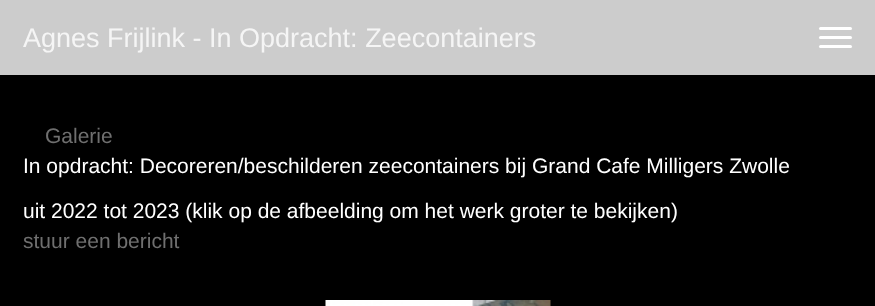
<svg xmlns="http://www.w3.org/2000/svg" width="875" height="306">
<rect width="100%" height="100%" fill="#000"/>
<rect width="875" height="75" fill="#ccc"/>
<text x="23" y="47" style="font-family:Liberation Sans;font-size:27px;fill:#f5f5f5">Agnes Frijlink - In Opdracht: Zeecontainers</text>
<rect x="819" y="27" width="33" height="3" rx="1.5" fill="#fff"/>
<rect x="819" y="36" width="33" height="3" rx="1.5" fill="#fff"/>
<rect x="819" y="45" width="33" height="3" rx="1.5" fill="#fff"/>
<text x="45" y="143" style="font-family:Liberation Sans;font-size:21px;fill:#6f6f6f">Galerie</text>
<text x="23" y="173" style="font-family:Liberation Sans;font-size:21px;fill:#fff">In opdracht: Decoreren/beschilderen zeecontainers bij Grand Cafe Milligers Zwolle</text>
<text x="23" y="218" style="font-family:Liberation Sans;font-size:21px;fill:#fff">uit 2022 tot 2023 (klik op de afbeelding om het werk groter te bekijken)</text>
<text x="23" y="248" style="font-family:Liberation Sans;font-size:21px;fill:#6f6f6f">stuur een bericht</text>
<image x="325" y="300" width="226" height="6" href="media/1.png"/>
</svg>
